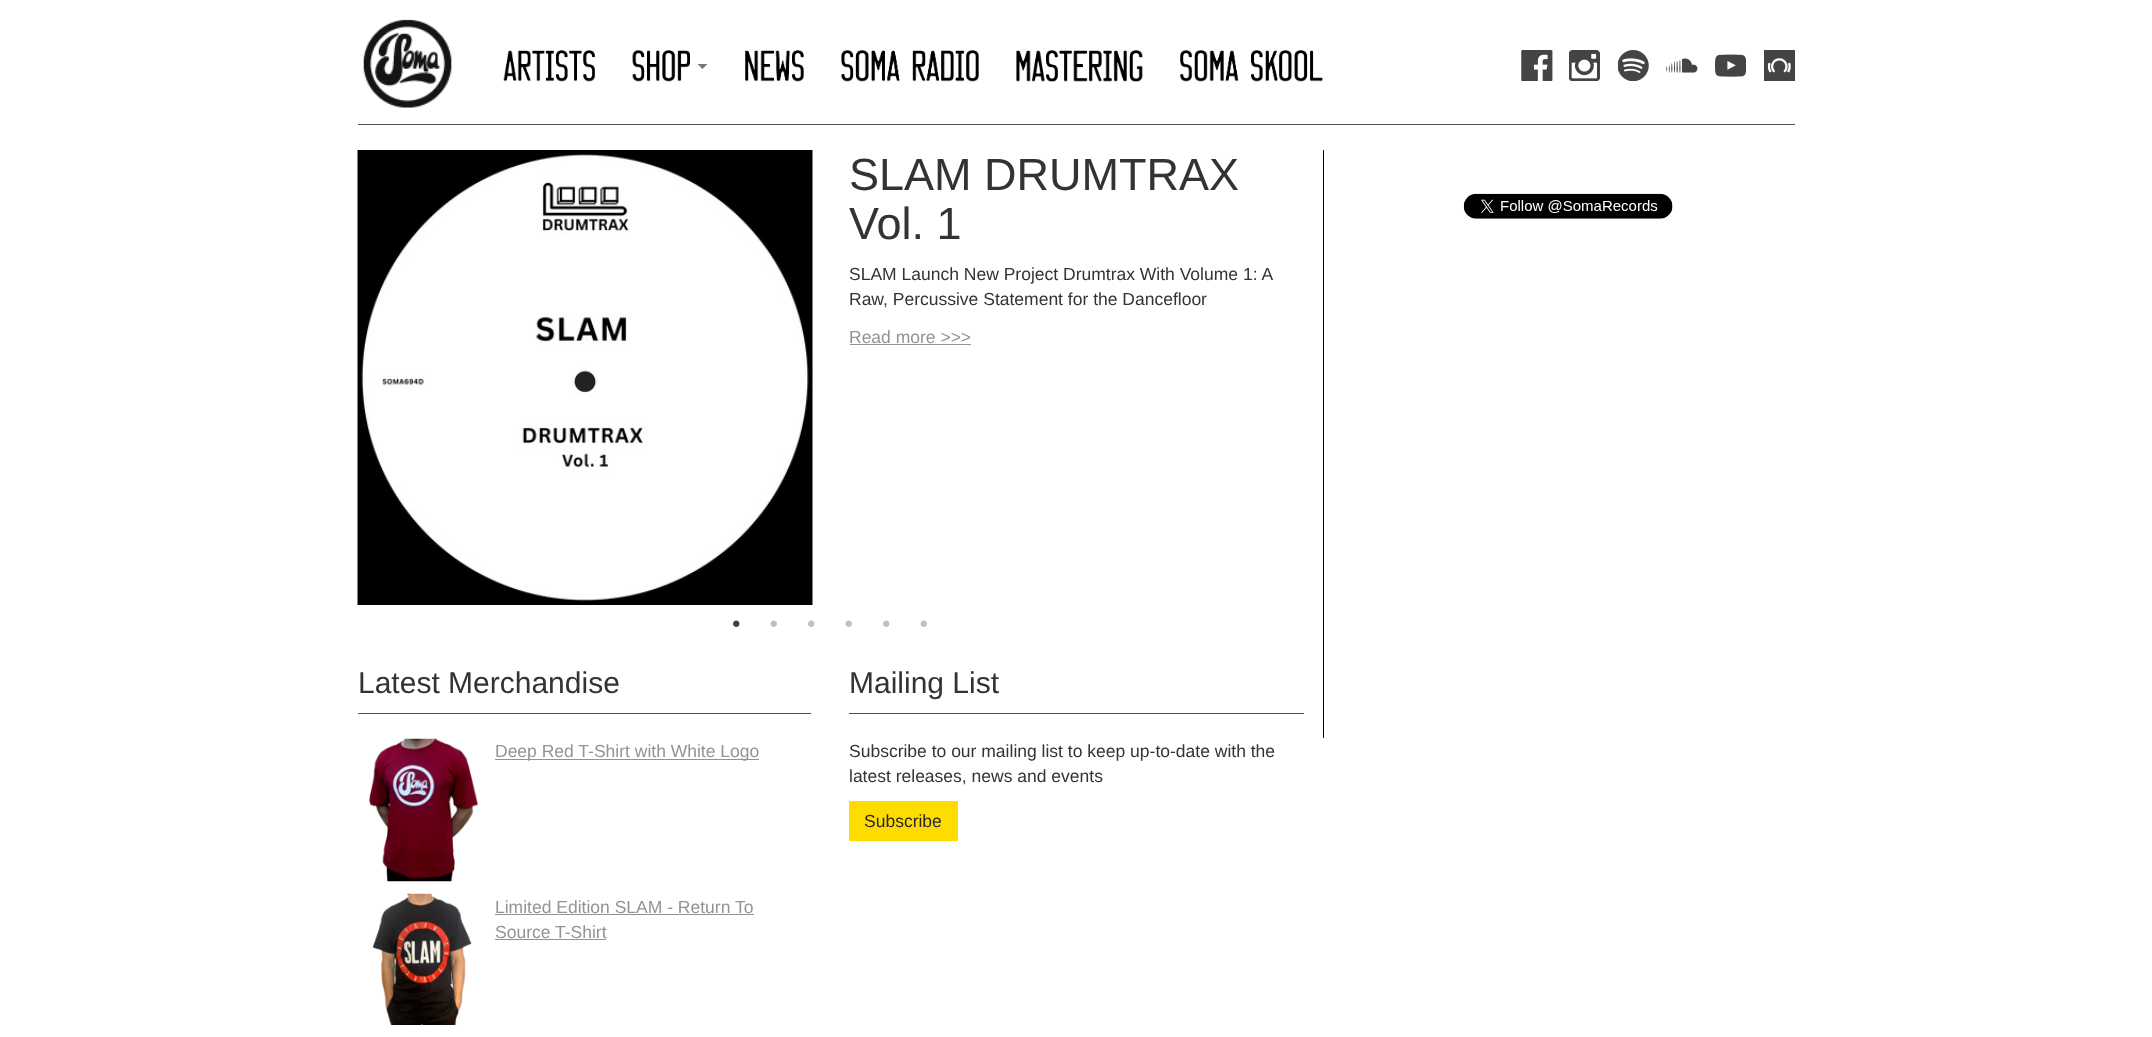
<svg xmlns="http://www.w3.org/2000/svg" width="2152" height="1037">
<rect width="100%" height="100%" fill="#fff"/>
<image x="363" y="19" width="89" height="89" href="media/1.png"/>
<image x="503" y="50" width="92" height="32" href="media/2.png"/>
<image x="632" y="50" width="58" height="32" href="media/3.png"/>
<path d="M697.5 64h10l-5 5z" fill="#777"/>
<image x="745" y="50" width="59" height="32" href="media/4.png"/>
<image x="841" y="50" width="138" height="32" href="media/5.png"/>
<image x="1016" y="50" width="127" height="32" href="media/6.png"/>
<image x="1180" y="50" width="143" height="32" href="media/7.png"/>
<image x="1521" y="50" width="32" height="31" href="media/8.png"/>
<image x="1569" y="50" width="31" height="31" href="media/9.png"/>
<image x="1618" y="50" width="31" height="31" href="media/10.png"/>
<image x="1666" y="58" width="32" height="15" href="media/11.png"/>
<image x="1715" y="54" width="31" height="23" href="media/12.png"/>
<image x="1764" y="50" width="31" height="31" href="media/13.png"/>
<rect x="358" y="124" width="1437" height="1" fill="#505050"/>
<image x="357" y="150" width="456" height="455" href="media/14.png"/>
<text x="849" y="190" style="font-family:Liberation Sans;font-size:45px;fill:#333">SLAM DRUMTRAX</text>
<text x="849" y="239" style="font-family:Liberation Sans;font-size:45px;fill:#333">Vol. 1</text>
<text x="849" y="280" style="font-family:Liberation Sans;font-size:17.5px;fill:#333">SLAM Launch New Project Drumtrax With Volume 1: A</text>
<text x="849" y="305" style="font-family:Liberation Sans;font-size:17.5px;fill:#333">Raw, Percussive Statement for the Dancefloor</text>
<text x="849" y="343" style="font-family:Liberation Sans;font-size:17.5px;fill:#949392">Read more &gt;&gt;&gt;</text>
<rect x="850" y="344" width="121" height="1" fill="#949392"/>
<image x="733" y="620" width="7" height="7" href="media/15.png"/>
<image x="770" y="620" width="7" height="7" href="media/16.png"/>
<image x="808" y="620" width="7" height="7" href="media/17.png"/>
<image x="845" y="620" width="7" height="7" href="media/16.png"/>
<image x="883" y="620" width="7" height="7" href="media/17.png"/>
<image x="920" y="620" width="7" height="7" href="media/16.png"/>
<text x="358" y="693" style="font-family:Liberation Sans;font-size:30px;fill:#333">Latest Merchandise</text>
<rect x="358" y="713" width="453" height="1" fill="#505050"/>
<image x="369" y="738" width="109" height="144" href="media/18.png"/>
<rect x="495" y="759" width="264" height="1" fill="#949392"/>
<text x="495" y="757" style="font-family:Liberation Sans;font-size:17.5px;fill:#949392">Deep Red T-Shirt with White Logo</text>
<image x="372" y="893" width="100" height="132" href="media/19.png"/>
<text x="495" y="913" style="font-family:Liberation Sans;font-size:17.5px;fill:#949392">Limited Edition SLAM - Return To</text>
<rect x="495" y="914" width="259" height="1" fill="#949392"/>
<text x="495" y="938" style="font-family:Liberation Sans;font-size:17.5px;fill:#949392">Source T-Shirt</text>
<rect x="495" y="939" width="111" height="1" fill="#949392"/>
<text x="849" y="693" style="font-family:Liberation Sans;font-size:30px;fill:#333">Mailing List</text>
<rect x="849" y="713" width="455" height="1" fill="#505050"/>
<text x="849" y="757" style="font-family:Liberation Sans;font-size:17.5px;fill:#333">Subscribe to our mailing list to keep up-to-date with the</text>
<text x="849" y="782" style="font-family:Liberation Sans;font-size:17.5px;fill:#333">latest releases, news and events</text>
<rect x="849" y="801" width="109" height="40" fill="#fedc00"/>
<text x="864" y="827" style="font-family:Liberation Sans;font-size:17.5px;fill:#282828">Subscribe</text>
<rect x="1323" y="150" width="1" height="588" fill="#000"/>
<image x="1463" y="193" width="210" height="26" href="media/20.png"/>
</svg>
